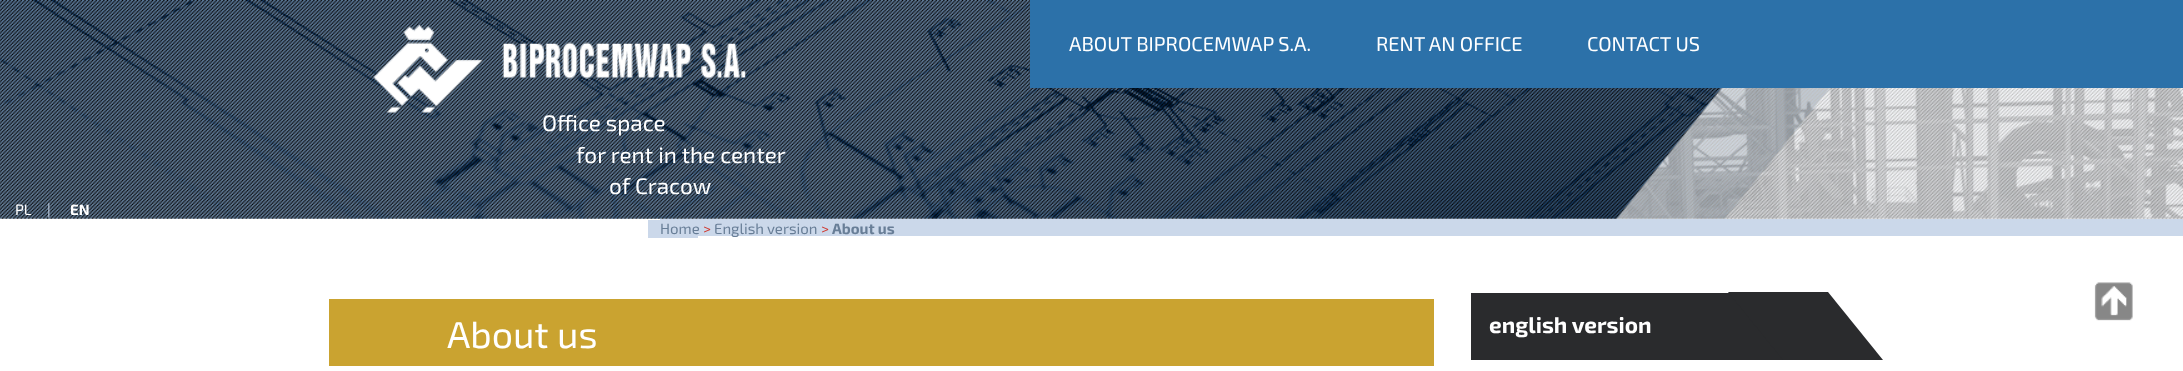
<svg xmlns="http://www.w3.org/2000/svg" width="2183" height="371">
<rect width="100%" height="100%" fill="#fff"/>
<image x="0" y="0" width="2183" height="219" href="media/1.png"/>
<rect x="1030" width="1153" height="88" fill="#2c71a9"/>
<image x="373" y="25" width="374" height="88" href="media/2.png"/>
<text x="1069" y="51" style="font-family:'Exo 2';font-size:20px;fill:#fff">ABOUT BIPROCEMWAP S.A.</text>
<text x="1376" y="51" style="font-family:'Exo 2';font-size:20px;fill:#fff">RENT AN OFFICE</text>
<text x="1587" y="51" style="font-family:'Exo 2';font-size:20px;fill:#fff">CONTACT US</text>
<text x="542" y="131" style="font-family:'Exo 2';font-size:22.5px;fill:#fff">Office space</text>
<text x="576" y="163" style="font-family:'Exo 2';font-size:22.5px;fill:#fff">for rent in the center</text>
<text x="609" y="194" style="font-family:'Exo 2';font-size:22.5px;fill:#fff">of Cracow</text>
<text x="15" y="215" style="font-family:'Exo 2';font-size:15px;fill:#fff">PL</text>
<text x="47" y="215" style="font-family:'Exo 2';font-size:15px;fill:#cbd8ea">|</text>
<text x="70" y="215" style="font-family:'Exo 2';font-size:15px;font-weight:bold;fill:#fff">EN</text>
<rect x="660" y="219" width="1523" height="17" fill="#cbd8ea"/>
<rect x="648" y="220" width="50" height="18" fill="#cbd8ea"/>
<text x="660" y="234" style="font-family:'Exo 2';font-size:15px;fill:#687e97">Home</text>
<text x="703" y="234" style="font-family:'Exo 2';font-size:15px;fill:#cf372e">&gt;</text>
<text x="714" y="234" style="font-family:'Exo 2';font-size:15px;fill:#687e97">English version</text>
<text x="821" y="234" style="font-family:'Exo 2';font-size:15px;fill:#cf372e">&gt;</text>
<text x="832" y="234" style="font-family:'Exo 2';font-size:15px;font-weight:bold;fill:#687e97">About us</text>
<rect x="329" y="299" width="1105" height="67" fill="#caa330"/>
<text x="447" y="348" style="font-family:'Exo 2';font-size:37.5px;fill:#fff">About us</text>
<rect x="1471" y="293" width="312" height="67" fill="#2a2b2d"/>
<text x="1489" y="333" style="font-family:'Exo 2';font-size:22.5px;font-weight:bold;fill:#fff">english version</text>
<path d="M1728 292h100l55 68h-100z" fill="#2a2b2d"/>
<image x="2094" y="282" width="39" height="39" href="media/3.png"/>
</svg>
